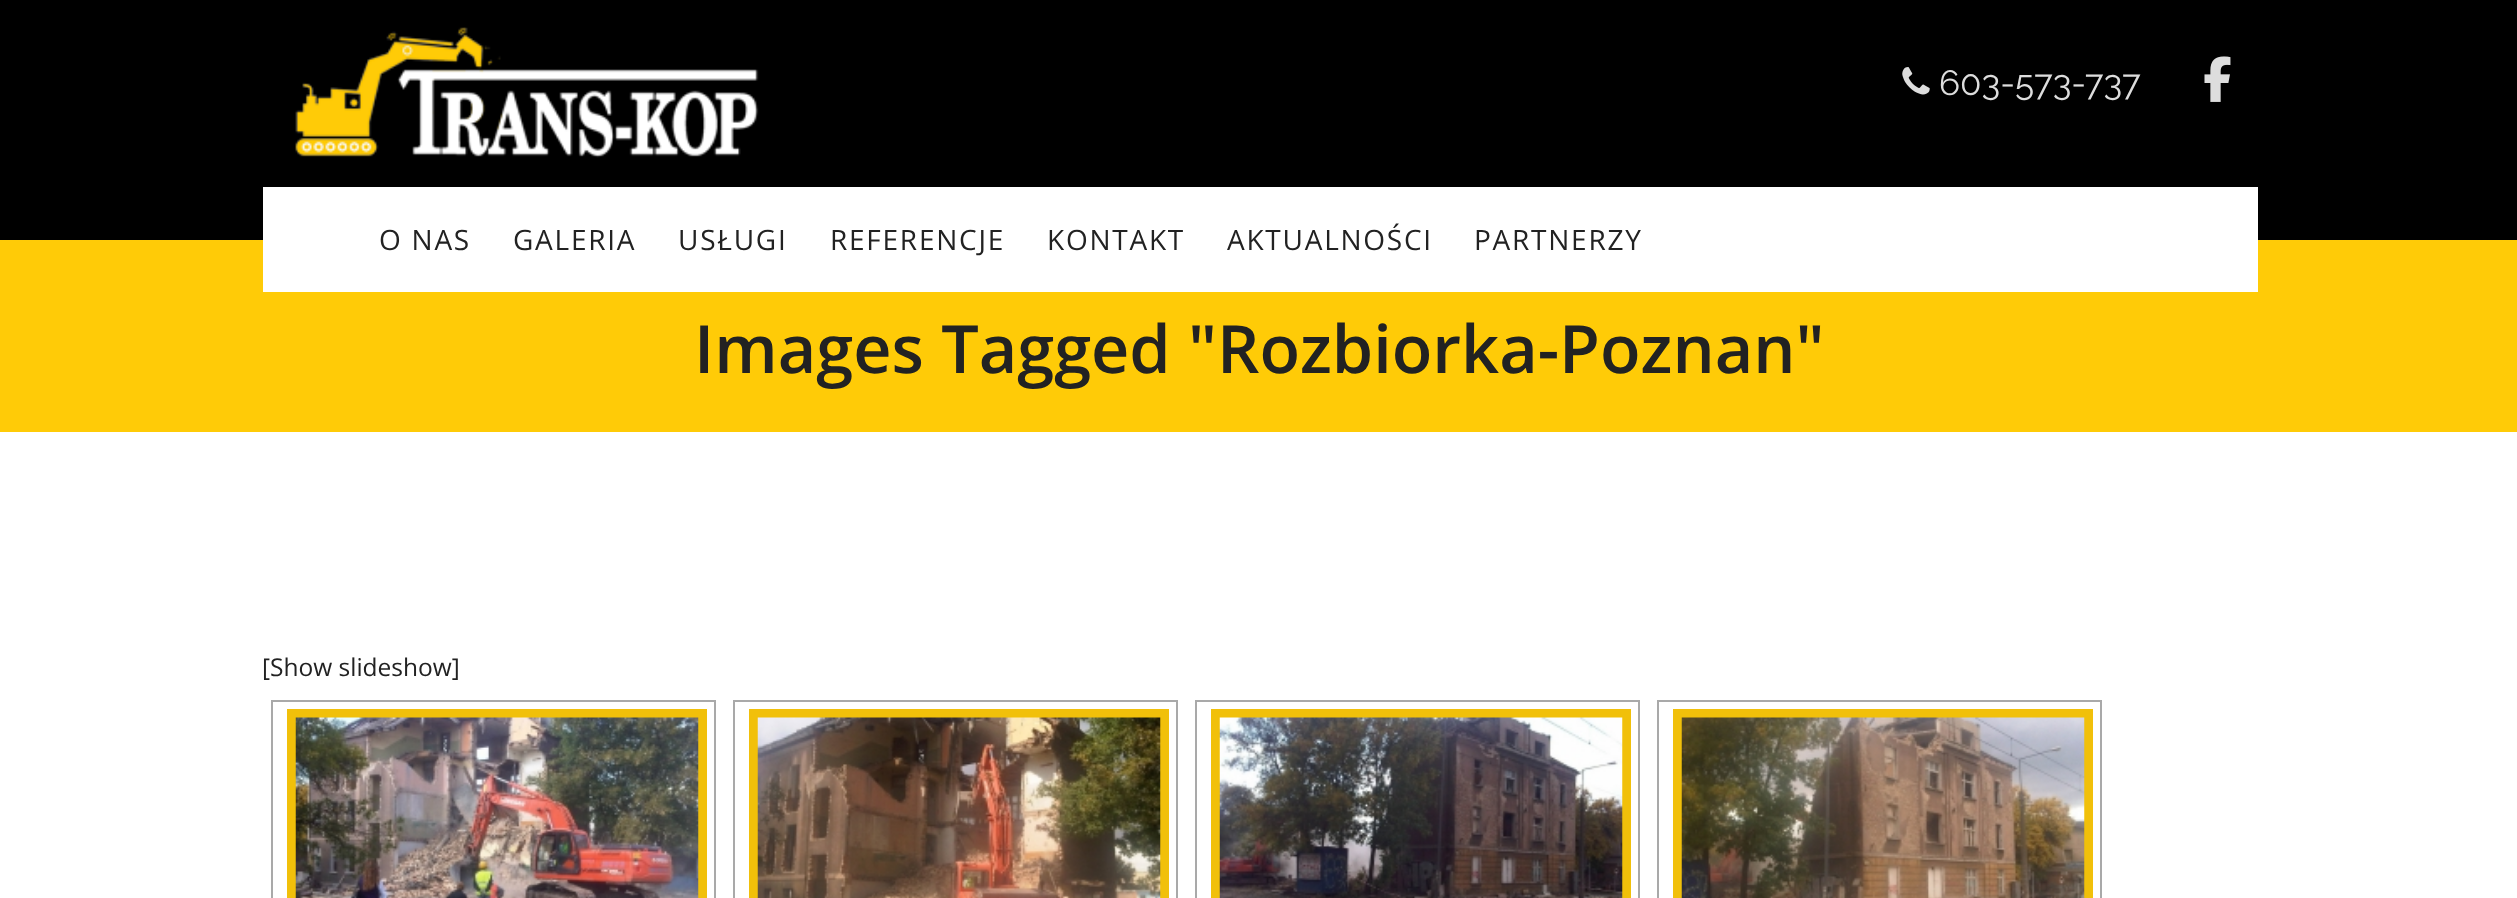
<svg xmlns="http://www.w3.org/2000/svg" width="2517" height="898">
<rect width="100%" height="100%" fill="#fff"/>
<rect width="2517" height="240" fill="#000"/>
<image x="295" y="27" width="464" height="131" href="media/1.png"/>
<image x="1902" y="67" width="28" height="28" href="media/2.png"/>
<text x="1939" y="95" style="font-family:Raleway;font-size:35px;fill:#ddd">603-573-737</text>
<image x="2204" y="56" width="27" height="46" href="media/3.png"/>
<rect y="240" width="2517" height="192" fill="#ffcb07"/>
<rect x="263" y="187" width="1995" height="105" fill="#fff"/>
<text x="379" y="250" style="font-family:Open Sans;font-size:28px;letter-spacing:1.75px;fill:#222">O NAS</text>
<text x="513" y="250" style="font-family:Open Sans;font-size:28px;letter-spacing:1.75px;fill:#222">GALERIA</text>
<text x="678" y="250" style="font-family:Open Sans;font-size:28px;letter-spacing:1.75px;fill:#222">USŁUGI</text>
<text x="830" y="250" style="font-family:Open Sans;font-size:28px;letter-spacing:1.75px;fill:#222">REFERENCJE</text>
<text x="1047" y="250" style="font-family:Open Sans;font-size:28px;letter-spacing:1.75px;fill:#222">KONTAKT</text>
<text x="1227" y="250" style="font-family:Open Sans;font-size:28px;letter-spacing:1.75px;fill:#222">AKTUALNOŚCI</text>
<text x="1474" y="250" style="font-family:Open Sans;font-size:28px;letter-spacing:1.75px;fill:#222">PARTNERZY</text>
<text x="694" y="373" style="font-family:Open Sans;font-size:66.5px;font-weight:600;fill:#222">Images Tagged "Rozbiorka-Poznan"</text>
<text x="262" y="676" style="font-family:Open Sans;font-size:24.5px;fill:#222">[Show slideshow]</text>
<rect x="272" y="701" width="443" height="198" fill="none" stroke="#a9a9a9" stroke-width="2"/>
<rect x="287" y="709" width="420" height="189" fill="#f1c00a"/>
<image x="295" y="717" width="404" height="181" href="media/4.png"/>
<rect x="734" y="701" width="443" height="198" fill="none" stroke="#a9a9a9" stroke-width="2"/>
<rect x="749" y="709" width="420" height="189" fill="#f1c00a"/>
<image x="757" y="717" width="404" height="181" href="media/5.png"/>
<rect x="1196" y="701" width="443" height="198" fill="none" stroke="#a9a9a9" stroke-width="2"/>
<rect x="1211" y="709" width="420" height="189" fill="#f1c00a"/>
<image x="1219" y="717" width="404" height="181" href="media/6.png"/>
<rect x="1658" y="701" width="443" height="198" fill="none" stroke="#a9a9a9" stroke-width="2"/>
<rect x="1673" y="709" width="420" height="189" fill="#f1c00a"/>
<image x="1681" y="717" width="404" height="181" href="media/7.png"/>
</svg>
